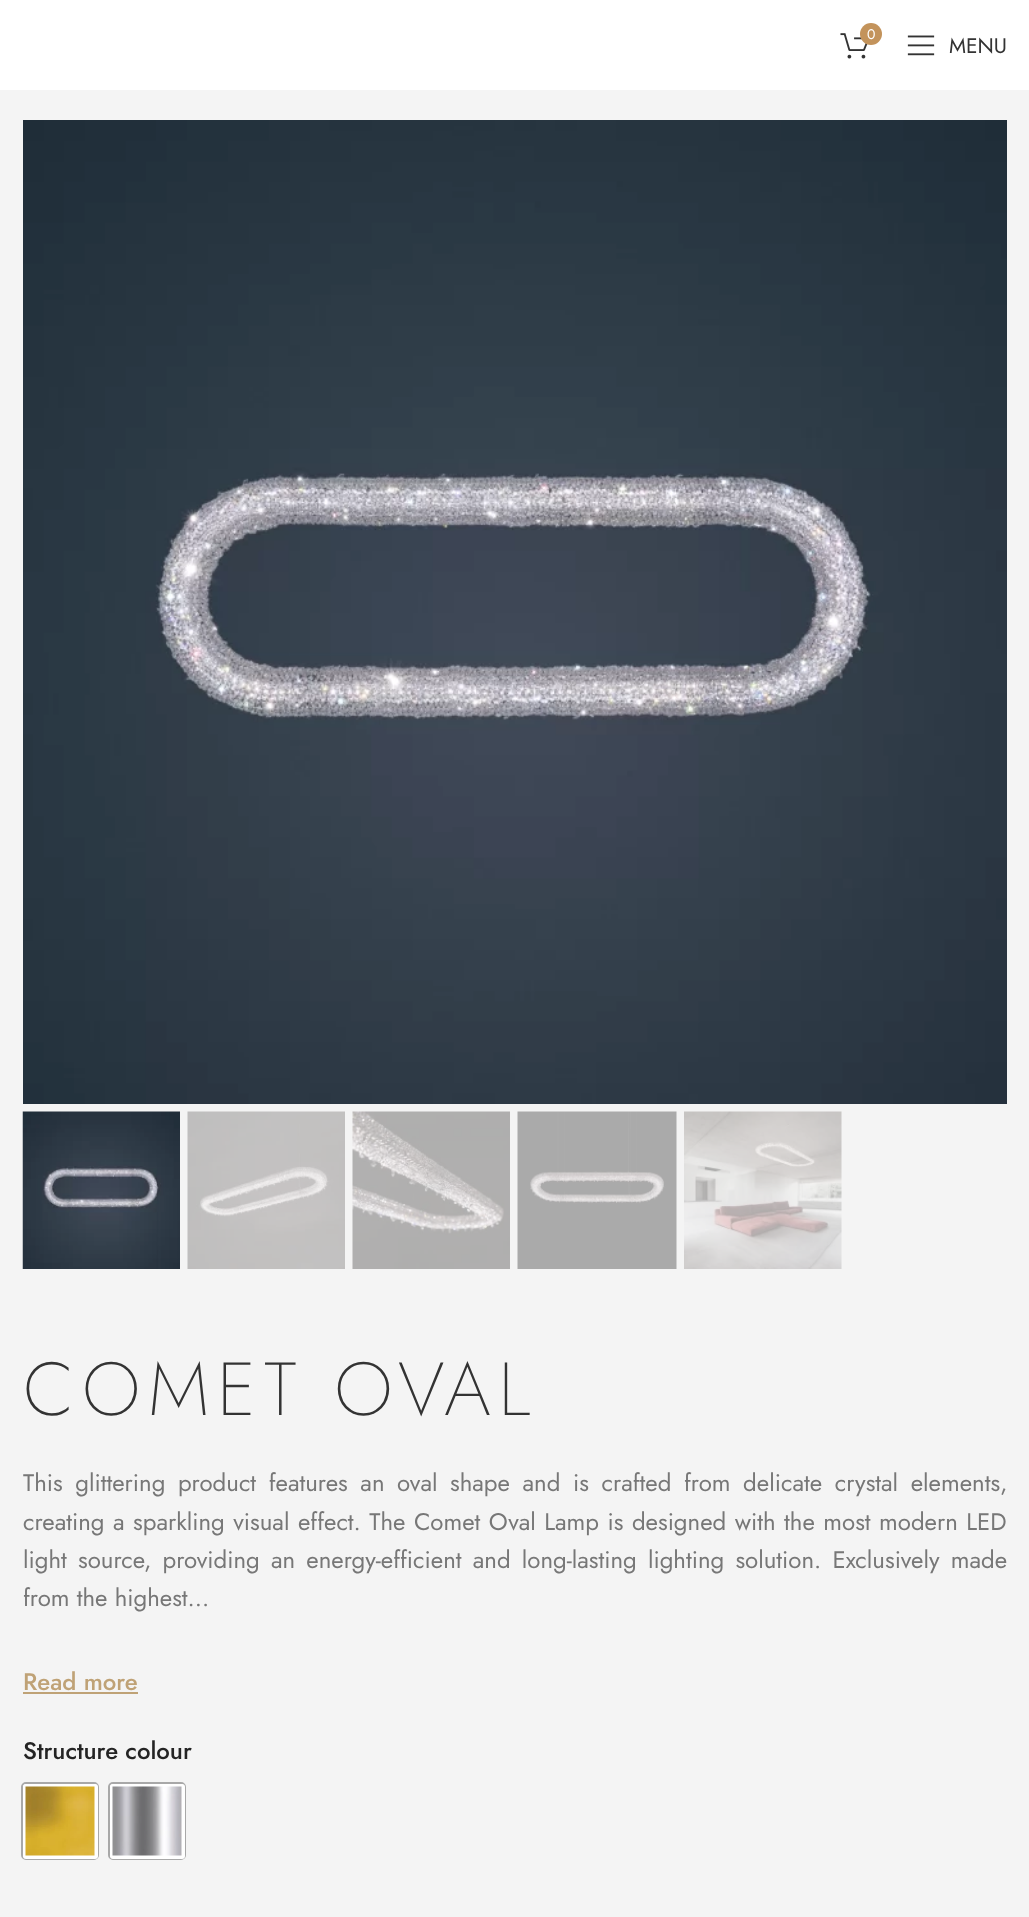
<svg xmlns="http://www.w3.org/2000/svg" width="1029" height="1917">
<rect width="100%" height="100%" fill="#fff"/>
<image x="840" y="33" width="28" height="26" href="media/1.png"/>
<circle cx="871" cy="34" r="11" fill="#c3935b"/>
<text x="867" y="39" style="font-family:Jost;font-size:14px;fill:#fff">0</text>
<image x="907" y="35" width="28" height="21" href="media/2.png"/>
<text x="949" y="53" style="font-family:Jost;font-size:21px;fill:#333">MENU</text>
<rect y="90" width="1029" height="1827" fill="#f4f4f4"/>
<image x="23" y="120" width="984" height="984" href="media/3.png"/>
<image x="22" y="1111" width="158" height="158" href="media/4.png"/>
<image x="187" y="1111" width="158" height="158" href="media/5.png"/>
<image x="352" y="1111" width="158" height="158" href="media/6.png"/>
<image x="517" y="1111" width="160" height="158" href="media/7.png"/>
<image x="684" y="1111" width="158" height="158" href="media/8.png"/>
<text x="23" y="1415" style="font-family:Jost;font-size:75px;font-weight:200;letter-spacing:7.5px;fill:#333">COMET OVAL</text>
<text x="23" y="1491" word-spacing="5.4" style="font-family:Jost;font-size:24px;fill:#777">This glittering product features an oval shape and is crafted from delicate crystal elements,</text>
<text x="23" y="1530" word-spacing="1.3" style="font-family:Jost;font-size:24px;fill:#777">creating a sparkling visual effect. The Comet Oval Lamp is designed with the most modern LED</text>
<text x="23" y="1568" word-spacing="4" style="font-family:Jost;font-size:24px;fill:#777">light source, providing an energy-efficient and long-lasting lighting solution. Exclusively made</text>
<text x="23" y="1606" style="font-family:Jost;font-size:24px;fill:#777">from the highest...</text>
<text x="23" y="1690" style="font-family:Jost;font-size:24px;font-weight:500;fill:#bfa276">Read more</text>
<rect x="23" y="1692" width="115" height="2" fill="#bfa276"/>
<text x="23" y="1759" style="font-family:Jost;font-size:24px;font-weight:500;fill:#242424">Structure colour</text>
<rect x="22" y="1783" width="76" height="76" rx="4" fill="none" stroke="#a8a8a8" stroke-width="2"/>
<rect x="23" y="1784" width="75" height="75" rx="3" fill="#fff"/>
<image x="25" y="1786" width="70" height="70" href="media/9.png"/>
<rect x="109" y="1783" width="76" height="76" rx="4" fill="none" stroke="#a8a8a8" stroke-width="2"/>
<rect x="110" y="1784" width="75" height="75" rx="3" fill="#fff"/>
<image x="112" y="1786" width="70" height="70" href="media/10.png"/>
</svg>
